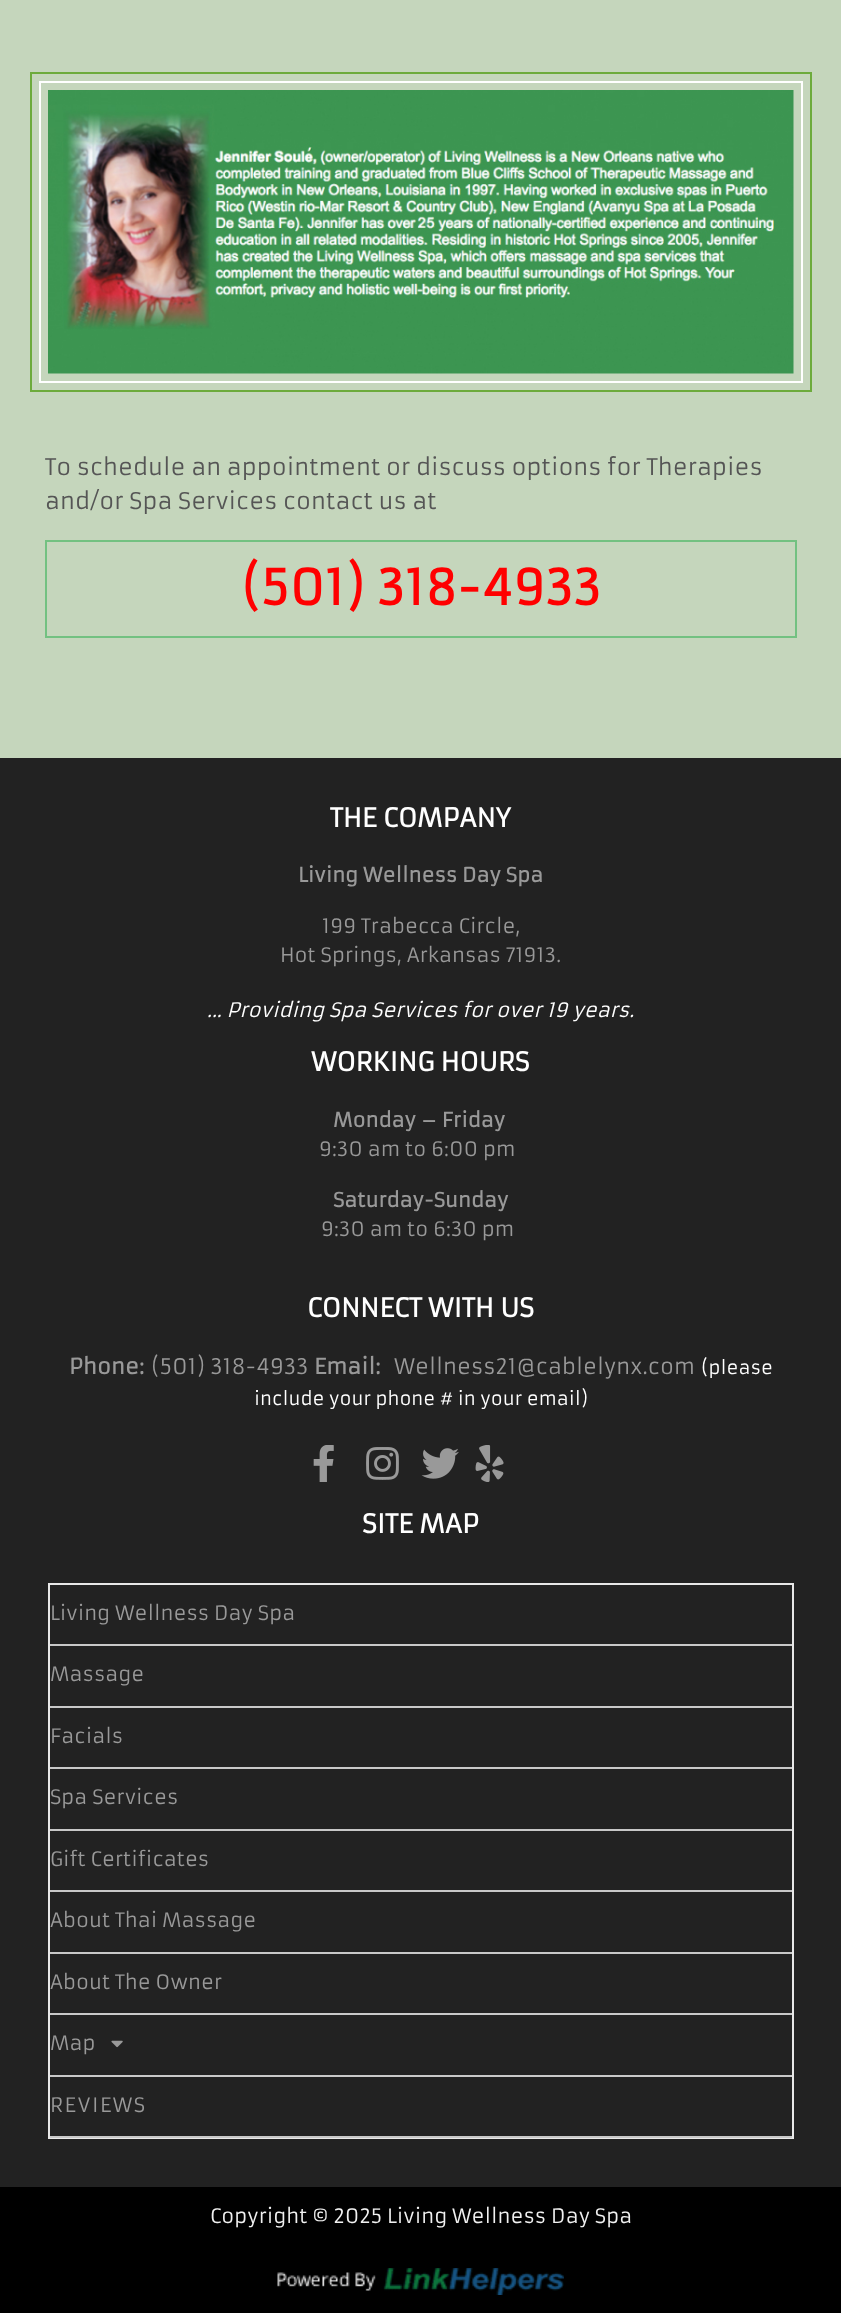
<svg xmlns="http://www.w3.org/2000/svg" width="841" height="2313">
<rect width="100%" height="100%" fill="#c5d6bc"/>
<rect x="31" y="73" width="780" height="318" fill="none" stroke="#6dab3c" stroke-width="2"/>
<rect x="40" y="82" width="762" height="300" fill="none" stroke="#fff" stroke-width="2"/>
<image x="48" y="90" width="746" height="284" href="media/1.png"/>
<text x="45" y="475" style="font-family:Armata;font-size:22.5px;fill:#555">To schedule an appointment or discuss options for Therapies</text>
<text x="45" y="509" style="font-family:Armata;font-size:22.5px;fill:#555">and/or Spa Services contact us at</text>
<rect x="46" y="541" width="750" height="96" fill="none" stroke="#73c181" stroke-width="2"/>
<text x="241" y="605" style="font-family:Armata;font-size:48px;font-weight:bold;fill:#f00">(501) 318-4933</text>
<rect y="758" width="841" height="1429" fill="#222"/>
<text x="330" y="827" style="font-family:Armata;font-size:25.5px;font-weight:bold;fill:#fff">THE COMPANY</text>
<text x="298" y="882" style="font-family:Armata;font-size:19.5px;font-weight:bold;fill:#999">Living Wellness Day Spa</text>
<text x="322" y="933" style="font-family:Armata;font-size:19.5px;fill:#999">199 Trabecca Circle,</text>
<text x="280" y="962" style="font-family:Armata;font-size:19.5px;fill:#999">Hot Springs, Arkansas 71913.</text>
<text x="207" y="1017" style="font-family:Armata;font-size:19.5px;font-style:italic;fill:#fff">... Providing Spa Services for over 19 years.</text>
<text x="311" y="1071" style="font-family:Armata;font-size:25.5px;font-weight:bold;fill:#fff">WORKING HOURS</text>
<text x="333" y="1127" style="font-family:Armata;font-size:19.5px;font-weight:bold;fill:#999">Monday – Friday</text>
<text x="319" y="1156" style="font-family:Armata;font-size:19.5px;fill:#999">9:30 am to 6:00 pm</text>
<text x="333" y="1207" style="font-family:Armata;font-size:19.5px;font-weight:bold;fill:#999">Saturday-Sunday</text>
<text x="321" y="1236" style="font-family:Armata;font-size:19.5px;fill:#999">9:30 am to 6:30 pm</text>
<text x="307" y="1317" style="font-family:Armata;font-size:25.5px;font-weight:bold;fill:#fff">CONNECT WITH US</text>
<text x="69" y="1374" style="font-family:Armata;font-size:21px;font-weight:bold;fill:#999">Phone:</text>
<text x="151" y="1374" style="font-family:Armata;font-size:21px;fill:#999">(501) 318-4933</text>
<text x="314" y="1374" style="font-family:Armata;font-size:21px;font-weight:bold;fill:#999">Email:</text>
<text x="394" y="1374" style="font-family:Armata;font-size:21px;fill:#999">Wellness21@cablelynx.com</text>
<text x="701" y="1374" style="font-family:Armata;font-size:18px;fill:#fff">(please</text>
<text x="254" y="1405" style="font-family:Armata;font-size:18px;fill:#fff">include your phone # in your email)</text>
<image x="313" y="1445" width="21" height="37" href="media/2.png"/>
<image x="366" y="1447" width="33" height="33" href="media/3.png"/>
<image x="421" y="1448" width="38" height="31" href="media/4.png"/>
<image x="475" y="1445" width="29" height="37" href="media/5.png"/>
<text x="362" y="1533" style="font-family:Armata;font-size:25.5px;font-weight:bold;fill:#fff">SITE MAP</text>
<rect x="49" y="1584" width="744" height="554" fill="none" stroke="#e8e8e8" stroke-width="2"/>
<rect x="50" y="1644" width="742" height="2" fill="#c8c8c8"/>
<text x="50" y="1620" style="font-family:Armata;font-size:19.5px;fill:#999">Living Wellness Day Spa</text>
<rect x="50" y="1706" width="742" height="2" fill="#c8c8c8"/>
<text x="50" y="1681" style="font-family:Armata;font-size:19.5px;fill:#999">Massage</text>
<rect x="50" y="1767" width="742" height="2" fill="#c8c8c8"/>
<text x="50" y="1743" style="font-family:Armata;font-size:19.5px;fill:#999">Facials</text>
<rect x="50" y="1829" width="742" height="2" fill="#c8c8c8"/>
<text x="50" y="1804" style="font-family:Armata;font-size:19.5px;fill:#999">Spa Services</text>
<rect x="50" y="1890" width="742" height="2" fill="#c8c8c8"/>
<text x="50" y="1866" style="font-family:Armata;font-size:19.5px;fill:#999">Gift Certificates</text>
<rect x="50" y="1952" width="742" height="2" fill="#c8c8c8"/>
<text x="50" y="1927" style="font-family:Armata;font-size:19.5px;fill:#999">About Thai Massage</text>
<rect x="50" y="2013" width="742" height="2" fill="#c8c8c8"/>
<text x="50" y="1989" style="font-family:Armata;font-size:19.5px;fill:#999">About The Owner</text>
<rect x="50" y="2075" width="742" height="2" fill="#c8c8c8"/>
<text x="50" y="2050" style="font-family:Armata;font-size:19.5px;fill:#999">Map</text>
<image x="111" y="2040" width="12" height="8" href="media/6.png"/>
<rect x="50" y="2136" width="742" height="2" fill="#c8c8c8"/>
<text x="50" y="2112" style="font-family:Armata;font-size:19.5px;letter-spacing:1.5px;fill:#999">REVIEWS</text>
<rect y="2187" width="841" height="126" fill="#000"/>
<text x="210" y="2223" style="font-family:Armata;font-size:19.5px;fill:#f1f1f1">Copyright © 2025 Living Wellness Day Spa</text>
<image x="277" y="2268" width="287" height="27" href="media/7.png"/>
</svg>
